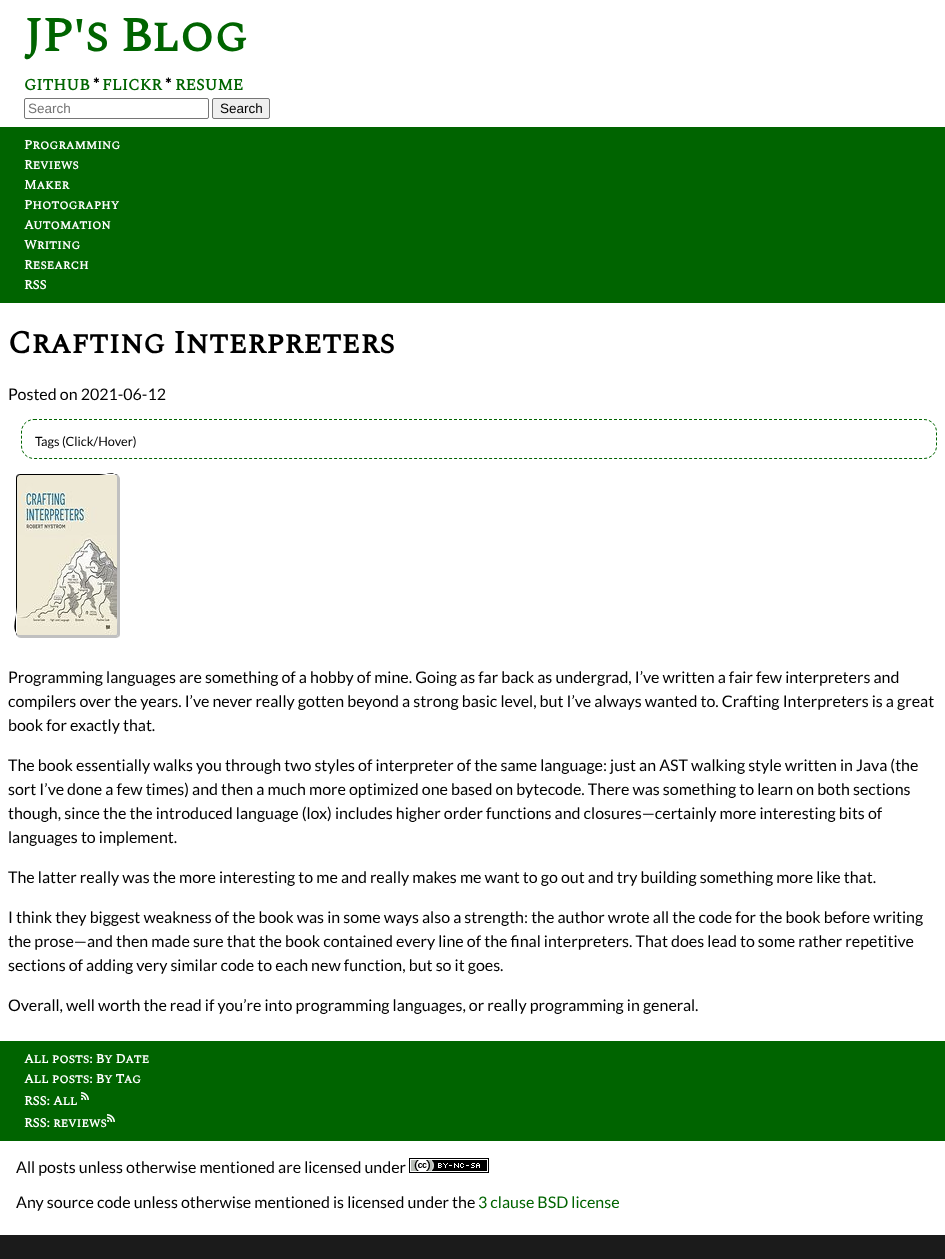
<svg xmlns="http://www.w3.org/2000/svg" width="945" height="1259">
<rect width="100%" height="100%" fill="#1b1b1b"/>
<rect width="945" height="127" fill="#fff"/>
<text x="24" y="51" style="font-family:Spectral SC;font-size:48px;font-weight:bold;fill:#006400">JP's Blog</text>
<text x="24" y="90" style="font-family:Spectral SC;font-size:16px;font-weight:bold;fill:#006400">GITHUB</text>
<text x="93" y="90" style="font-family:Lato;font-size:16px;font-weight:bold;fill:#000">*</text>
<text x="102" y="90" style="font-family:Spectral SC;font-size:16px;font-weight:bold;fill:#006400">FLICKR</text>
<text x="165" y="90" style="font-family:Lato;font-size:16px;font-weight:bold;fill:#000">*</text>
<text x="175" y="90" style="font-family:Spectral SC;font-size:16px;font-weight:bold;fill:#006400">RESUME</text>
<rect x="24.5" y="98.5" width="184" height="20" rx="1.5" fill="none" stroke="#767676"/>
<text x="28" y="113" style="font-family:Liberation Sans;font-size:13.5px;fill:#757575">Search</text>
<rect x="212.5" y="98.5" width="57" height="20" rx="1.5" fill="#efefef" stroke="#767676"/>
<text x="220" y="113" style="font-family:Liberation Sans;font-size:13.5px;fill:#000">Search</text>
<rect y="127" width="945" height="176" fill="#006400"/>
<text x="24" y="149" style="font-family:Spectral SC;font-size:13px;font-weight:bold;fill:#fff">Programming</text>
<text x="24" y="169" style="font-family:Spectral SC;font-size:13px;font-weight:bold;fill:#fff">Reviews</text>
<text x="24" y="189" style="font-family:Spectral SC;font-size:13px;font-weight:bold;fill:#fff">Maker</text>
<text x="24" y="209" style="font-family:Spectral SC;font-size:13px;font-weight:bold;fill:#fff">Photography</text>
<text x="24" y="229" style="font-family:Spectral SC;font-size:13px;font-weight:bold;fill:#fff">Automation</text>
<text x="24" y="249" style="font-family:Spectral SC;font-size:13px;font-weight:bold;fill:#fff">Writing</text>
<text x="24" y="269" style="font-family:Spectral SC;font-size:13px;font-weight:bold;fill:#fff">Research</text>
<text x="24" y="289" style="font-family:Spectral SC;font-size:13px;font-weight:bold;fill:#fff">RSS</text>
<rect y="303" width="945" height="738" fill="#fff"/>
<text x="8" y="353" style="font-family:Spectral SC;font-size:32px;font-weight:bold;fill:#000">Crafting Interpreters</text>
<text x="8" y="400" style="font-family:Lato;font-size:16px;fill:#000">Posted on 2021-06-12</text>
<path d="M34 419.5h890c7 0 12.5 5.5 12.5 12.5v14c0 7-5.5 12.5-12.5 12.5h-890c-7 0-12.5-5.5-12.5-12.5v-14c0-7 5.5-12.5 12.5-12.5z" fill="none" stroke="#006400" stroke-dasharray="3 2"/>
<text x="35" y="446" style="font-family:Lato;font-size:12.75px;fill:#000">Tags (Click/Hover)</text>
<path d="M21 474c-1 0-3 0-4 1l1 1l3-1h78c6 0 13-4 17 0h2l-3-1z" fill="#000"/>
<path d="M120 633v-154c0-2-1-3-2-4h-2l1 4v103c0 4 1 51-1 52l3 3c1-1 1-3 1-4z" fill="#c0c0c0"/>
<path d="M21 638h95l3-1l-3-3l-1 1h-94c-1 0-3-1-4-1v2c1 1 2 2 4 2z" fill="#c0c0c0"/>
<path d="M16 479v154l1 3v-2c-6-6 0-18 0-27v-128l1-3l-1-1c-1 1-1 3-1 4z" fill="#000"/>
<image x="17" y="475" width="100" height="160" href="media/1.png"/>
<text x="8" y="683" style="font-family:Lato;font-size:16px;fill:#000">Programming languages are something of a hobby of mine. Going as far back as undergrad, I’ve written a fair few interpreters and</text>
<text x="8" y="707" style="font-family:Lato;font-size:16px;fill:#000">compilers over the years. I’ve never really gotten beyond a strong basic level, but I’ve always wanted to. Crafting Interpreters is a great</text>
<text x="8" y="731" style="font-family:Lato;font-size:16px;fill:#000">book for exactly that.</text>
<text x="8" y="771" style="font-family:Lato;font-size:16px;fill:#000">The book essentially walks you through two styles of interpreter of the same language: just an AST walking style written in Java (the</text>
<text x="8" y="795" style="font-family:Lato;font-size:16px;fill:#000">sort I’ve done a few times) and then a much more optimized one based on bytecode. There was something to learn on both sections</text>
<text x="8" y="819" style="font-family:Lato;font-size:16px;fill:#000">though, since the the introduced language (lox) includes higher order functions and closures—certainly more interesting bits of</text>
<text x="8" y="843" style="font-family:Lato;font-size:16px;fill:#000">languages to implement.</text>
<text x="8" y="883" style="font-family:Lato;font-size:16px;fill:#000">The latter really was the more interesting to me and really makes me want to go out and try building something more like that.</text>
<text x="8" y="923" style="font-family:Lato;font-size:16px;fill:#000">I think they biggest weakness of the book was in some ways also a strength: the author wrote all the code for the book before writing</text>
<text x="8" y="947" style="font-family:Lato;font-size:16px;fill:#000">the prose—and then made sure that the book contained every line of the final interpreters. That does lead to some rather repetitive</text>
<text x="8" y="971" style="font-family:Lato;font-size:16px;fill:#000">sections of adding very similar code to each new function, but so it goes.</text>
<text x="8" y="1011" style="font-family:Lato;font-size:16px;fill:#000">Overall, well worth the read if you’re into programming languages, or really programming in general.</text>
<rect y="1141" width="945" height="94" fill="#fff"/>
<rect y="1041" width="945" height="100" fill="#006400"/>
<text x="24" y="1063" style="font-family:Spectral SC;font-size:13px;font-weight:bold;fill:#fff">All posts: By Date</text>
<text x="24" y="1083" style="font-family:Spectral SC;font-size:13px;font-weight:bold;fill:#fff">All posts: By Tag</text>
<text x="24" y="1105" style="font-family:Spectral SC;font-size:13px;font-weight:bold;fill:#fff">RSS: All</text>
<image x="81" y="1092" width="8" height="8" href="media/2.png"/>
<text x="24" y="1127" style="font-family:Spectral SC;font-size:13px;font-weight:bold;fill:#fff">RSS: reviews</text>
<image x="107" y="1114" width="8" height="8" href="media/2.png"/>
<text x="16" y="1173" style="font-family:Lato;font-size:16px;fill:#000">All posts unless otherwise mentioned are licensed under</text>
<image x="409" y="1158" width="80" height="15" href="media/3.png"/>
<text x="16" y="1208" style="font-family:Lato;font-size:16px;fill:#000">Any source code unless otherwise mentioned is licensed under the</text>
<text x="478" y="1208" style="font-family:Lato;font-size:16px;fill:#006400">3 clause BSD license</text>
</svg>
